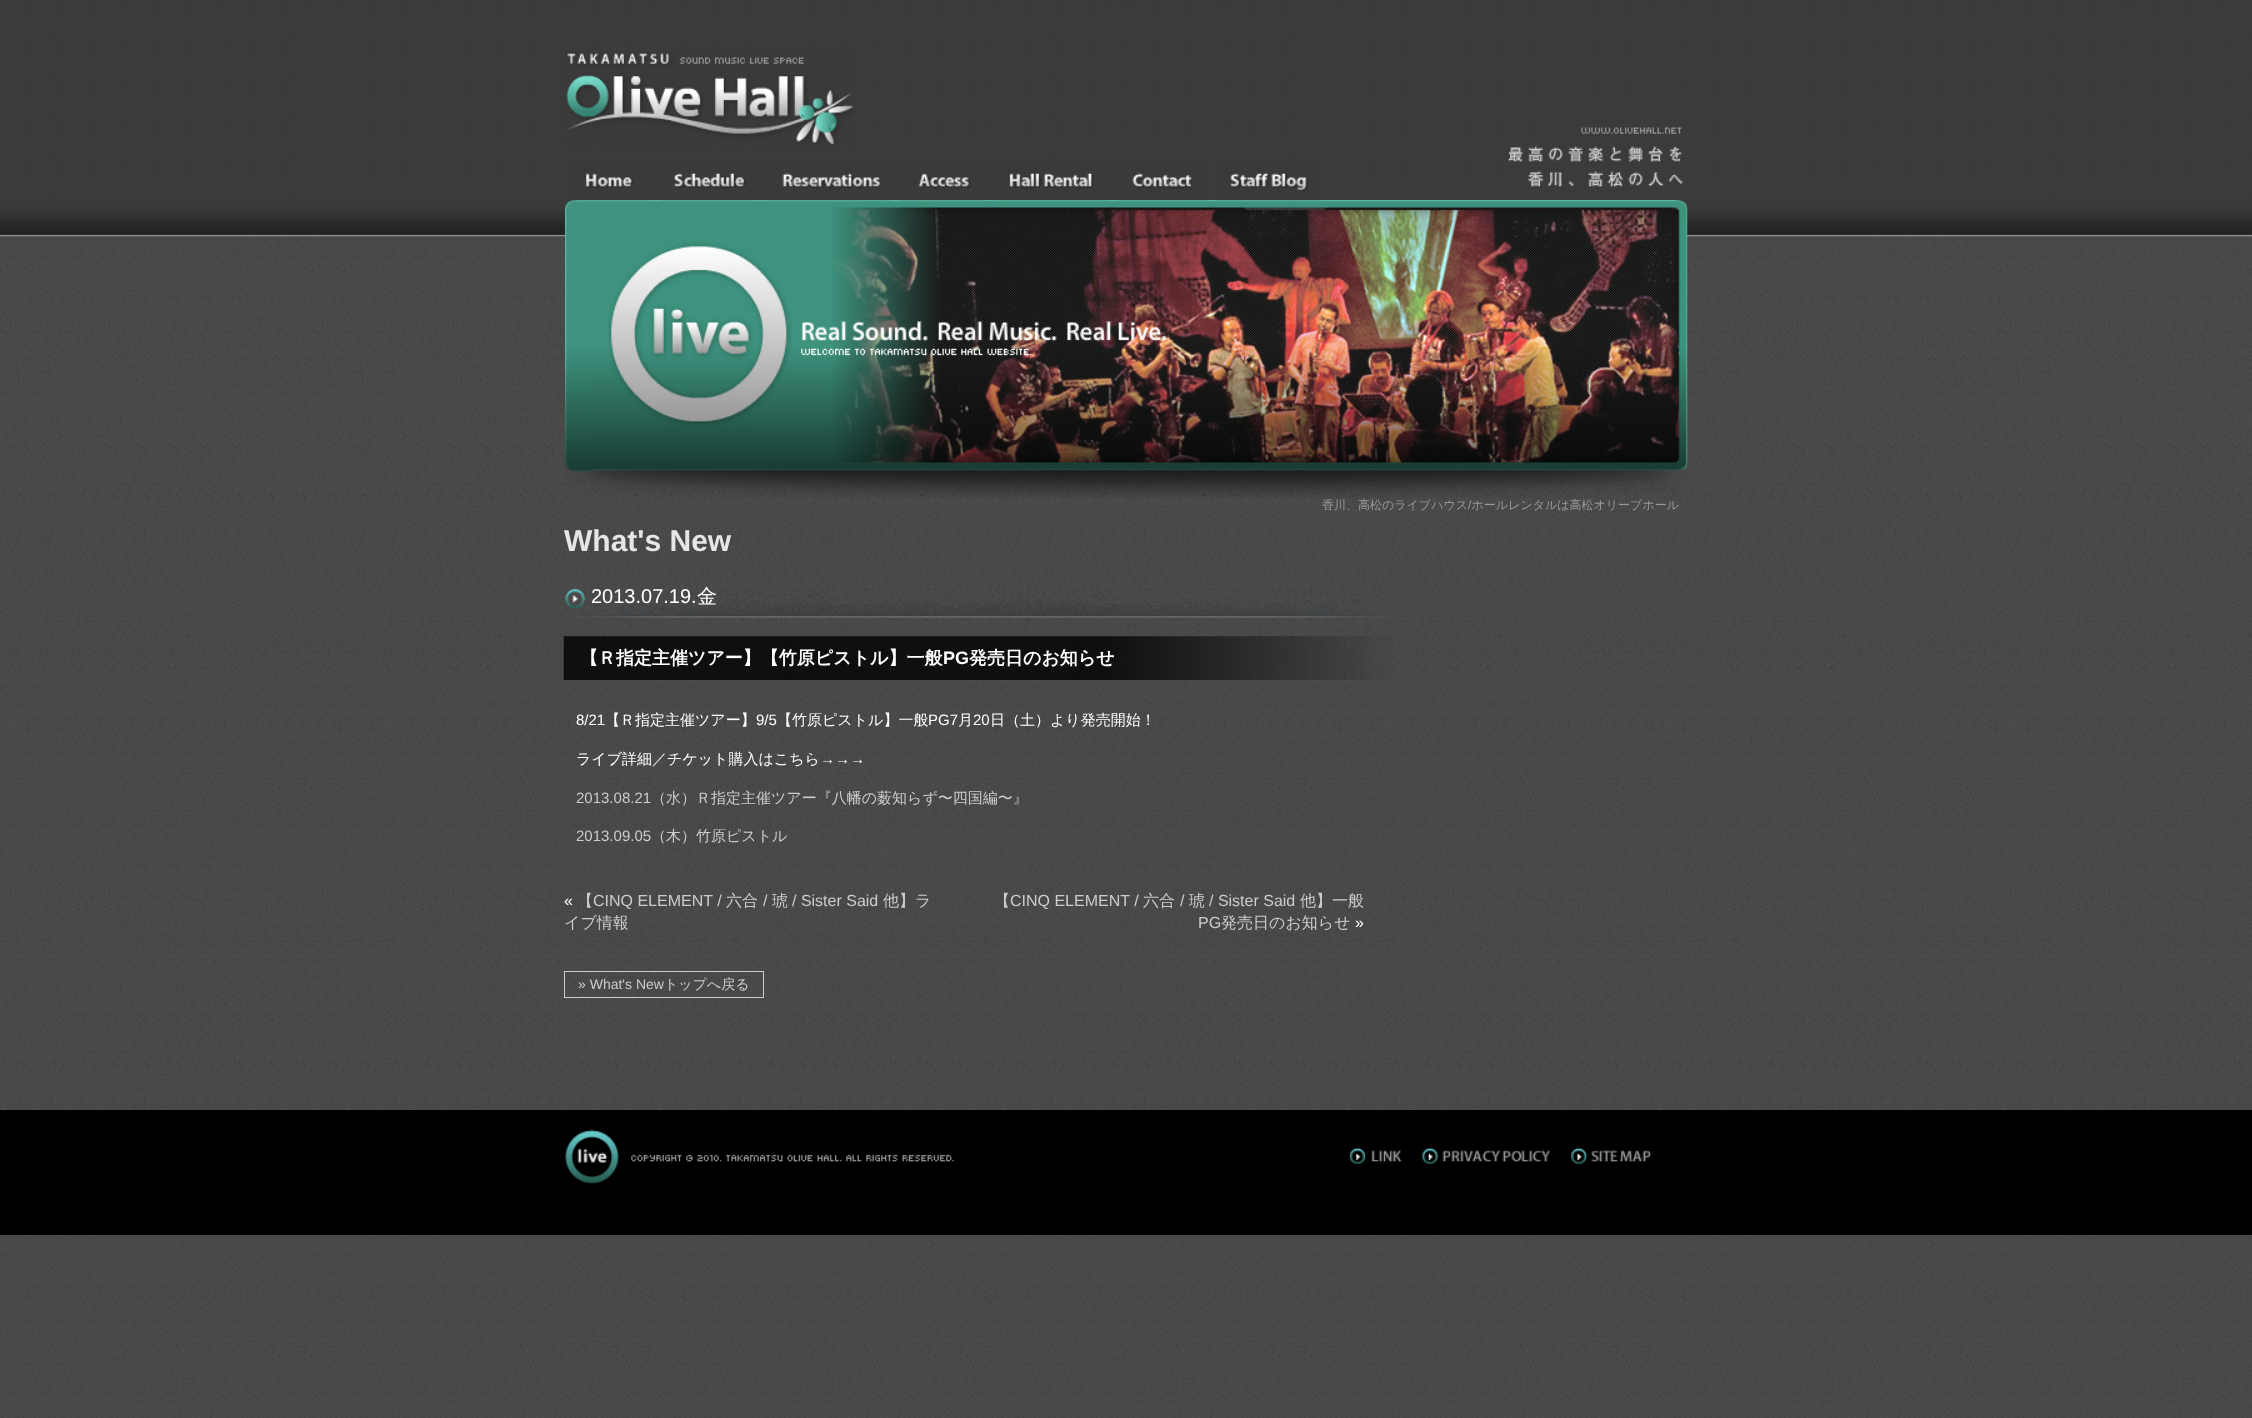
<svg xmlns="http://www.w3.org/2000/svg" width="2252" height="1418">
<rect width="100%" height="100%" fill="#fff"/>
<image x="0" y="0" width="2252" height="1418" href="media/1.png"/>
<image x="565" y="51" width="290" height="95" href="media/2.png"/>
<image x="1508" y="127" width="175" height="60" href="media/3.png"/>
<image x="565" y="200" width="1123" height="298" href="media/11.png"/>
<image x="571" y="164" width="79" height="37" href="media/4.png"/>
<image x="658" y="164" width="100" height="37" href="media/5.png"/>
<image x="766" y="164" width="125" height="37" href="media/6.png"/>
<image x="900" y="164" width="85" height="37" href="media/7.png"/>
<image x="994" y="164" width="115" height="37" href="media/8.png"/>
<image x="1117" y="164" width="91" height="37" href="media/9.png"/>
<image x="1216" y="164" width="104" height="37" href="media/10.png"/>
<text x="1322" y="509" style="font-family:WenQuanYi Zen Hei;font-size:12px;font-weight:500;fill:#999">香川、高松のライブハウス ホールレンタルは高松オリーブホール</text>
<text x="1468" y="509" style="font-family:Liberation Sans;font-size:12px;fill:#999">/</text>
<text x="564" y="551" style="font-family:Liberation Sans;font-size:30px;font-weight:bold;fill:#e6e6e6">What's New</text>
<image x="564" y="589" width="830" height="37" href="media/12.png"/>
<image x="564" y="587" width="22" height="23" href="media/13.png"/>
<text x="591" y="603" style="font-family:Liberation Sans;font-size:20px;fill:#fff">2013.07.19.</text>
<text x="697" y="603" style="font-family:WenQuanYi Zen Hei;font-size:20px;font-weight:500;fill:#fff">金</text>
<image x="563" y="636" width="831" height="44" href="media/14.png"/>
<text x="580" y="664" style="font-family:WenQuanYi Zen Hei;font-size:18px;font-weight:bold;fill:#fff">【Ｒ指定主催ツアー】【竹原ピストル】一般</text>
<text x="943" y="664" style="font-family:Liberation Sans;font-size:18px;font-weight:bold;fill:#fff">PG</text>
<text x="969" y="664" style="font-family:WenQuanYi Zen Hei;font-size:18px;font-weight:bold;fill:#fff">発売日のお知らせ</text>
<text x="576" y="725" style="font-family:Liberation Sans;font-size:15px;fill:#fff">8/21</text>
<text x="605" y="725" style="font-family:WenQuanYi Zen Hei;font-size:15px;font-weight:500;fill:#fff">【Ｒ指定主催ツアー】</text>
<text x="756" y="725" style="font-family:Liberation Sans;font-size:15px;fill:#fff">9/5</text>
<text x="777" y="725" style="font-family:WenQuanYi Zen Hei;font-size:15px;font-weight:500;fill:#fff">【竹原ピストル】一般</text>
<text x="928" y="725" style="font-family:Liberation Sans;font-size:15px;fill:#fff">PG7</text>
<text x="958" y="725" style="font-family:WenQuanYi Zen Hei;font-size:15px;font-weight:500;fill:#fff">月</text>
<text x="973" y="725" style="font-family:Liberation Sans;font-size:15px;fill:#fff">20</text>
<text x="990" y="725" style="font-family:WenQuanYi Zen Hei;font-size:15px;font-weight:500;fill:#fff">日（土）より発売開始！</text>
<text x="576" y="764" style="font-family:WenQuanYi Zen Hei;font-size:15px;font-weight:500;fill:#fff">ライブ詳細／チケット購入はこちら</text>
<text x="820" y="764" style="font-family:Liberation Sans;font-size:15px;fill:#fff">→→→</text>
<text x="576" y="803" style="font-family:Liberation Sans;font-size:15px;fill:#ccc">2013.08.21</text>
<text x="651" y="803" style="font-family:WenQuanYi Zen Hei;font-size:15px;font-weight:500;fill:#ccc">（水）Ｒ指定主催ツアー『八幡の薮知らず〜四国編〜』</text>
<text x="576" y="841" style="font-family:Liberation Sans;font-size:15px;fill:#ccc">2013.09.05</text>
<text x="651" y="841" style="font-family:WenQuanYi Zen Hei;font-size:15px;font-weight:500;fill:#ccc">（木）竹原ピストル</text>
<text x="564" y="906" style="font-family:Liberation Sans;font-size:16px;fill:#fff">«</text>
<text x="577" y="906" style="font-family:WenQuanYi Zen Hei;font-size:16px;font-weight:500;fill:#ccc">【</text>
<text x="593" y="906" style="font-family:Liberation Sans;font-size:16px;fill:#ccc">CINQ ELEMENT /</text>
<text x="726" y="906" style="font-family:WenQuanYi Zen Hei;font-size:16px;font-weight:500;fill:#ccc">六合</text>
<text x="763" y="906" style="font-family:Liberation Sans;font-size:16px;fill:#ccc">/</text>
<text x="772" y="906" style="font-family:WenQuanYi Zen Hei;font-size:16px;font-weight:500;fill:#ccc">琥</text>
<text x="792" y="906" style="font-family:Liberation Sans;font-size:16px;fill:#ccc">/ Sister Said</text>
<text x="883" y="906" style="font-family:WenQuanYi Zen Hei;font-size:16px;font-weight:500;fill:#ccc">他】ラ</text>
<text x="564" y="928" style="font-family:WenQuanYi Zen Hei;font-size:16px;font-weight:500;fill:#ccc">イブ情報</text>
<text x="994" y="906" style="font-family:WenQuanYi Zen Hei;font-size:16px;font-weight:500;fill:#ccc">【</text>
<text x="1010" y="906" style="font-family:Liberation Sans;font-size:16px;fill:#ccc">CINQ ELEMENT /</text>
<text x="1143" y="906" style="font-family:WenQuanYi Zen Hei;font-size:16px;font-weight:500;fill:#ccc">六合</text>
<text x="1180" y="906" style="font-family:Liberation Sans;font-size:16px;fill:#ccc">/</text>
<text x="1189" y="906" style="font-family:WenQuanYi Zen Hei;font-size:16px;font-weight:500;fill:#ccc">琥</text>
<text x="1209" y="906" style="font-family:Liberation Sans;font-size:16px;fill:#ccc">/ Sister Said</text>
<text x="1300" y="906" style="font-family:WenQuanYi Zen Hei;font-size:16px;font-weight:500;fill:#ccc">他】一般</text>
<text x="1198" y="928" style="font-family:Liberation Sans;font-size:16px;fill:#ccc">PG</text>
<text x="1221" y="928" style="font-family:WenQuanYi Zen Hei;font-size:16px;font-weight:500;fill:#ccc">発売日のお知らせ</text>
<text x="1355" y="928" style="font-family:Liberation Sans;font-size:16px;fill:#fff">»</text>
<rect x="564.5" y="971.5" width="199" height="26" fill="none" stroke="#ccc"/>
<text x="578" y="989" style="font-family:Liberation Sans;font-size:14px;fill:#ccc">» What's New</text>
<text x="664" y="989" style="font-family:WenQuanYi Zen Hei;font-size:14px;font-weight:500;fill:#ccc">トップへ戻る</text>
<rect y="1110" width="2252" height="125" fill="#000"/>
<image x="565" y="1129" width="54" height="55" href="media/15.png"/>
<image x="631" y="1154" width="323" height="8" href="media/16.png"/>
<image x="1349" y="1147" width="53" height="18" href="media/17.png"/>
<image x="1421" y="1147" width="130" height="18" href="media/18.png"/>
<image x="1570" y="1147" width="82" height="18" href="media/19.png"/>
</svg>
